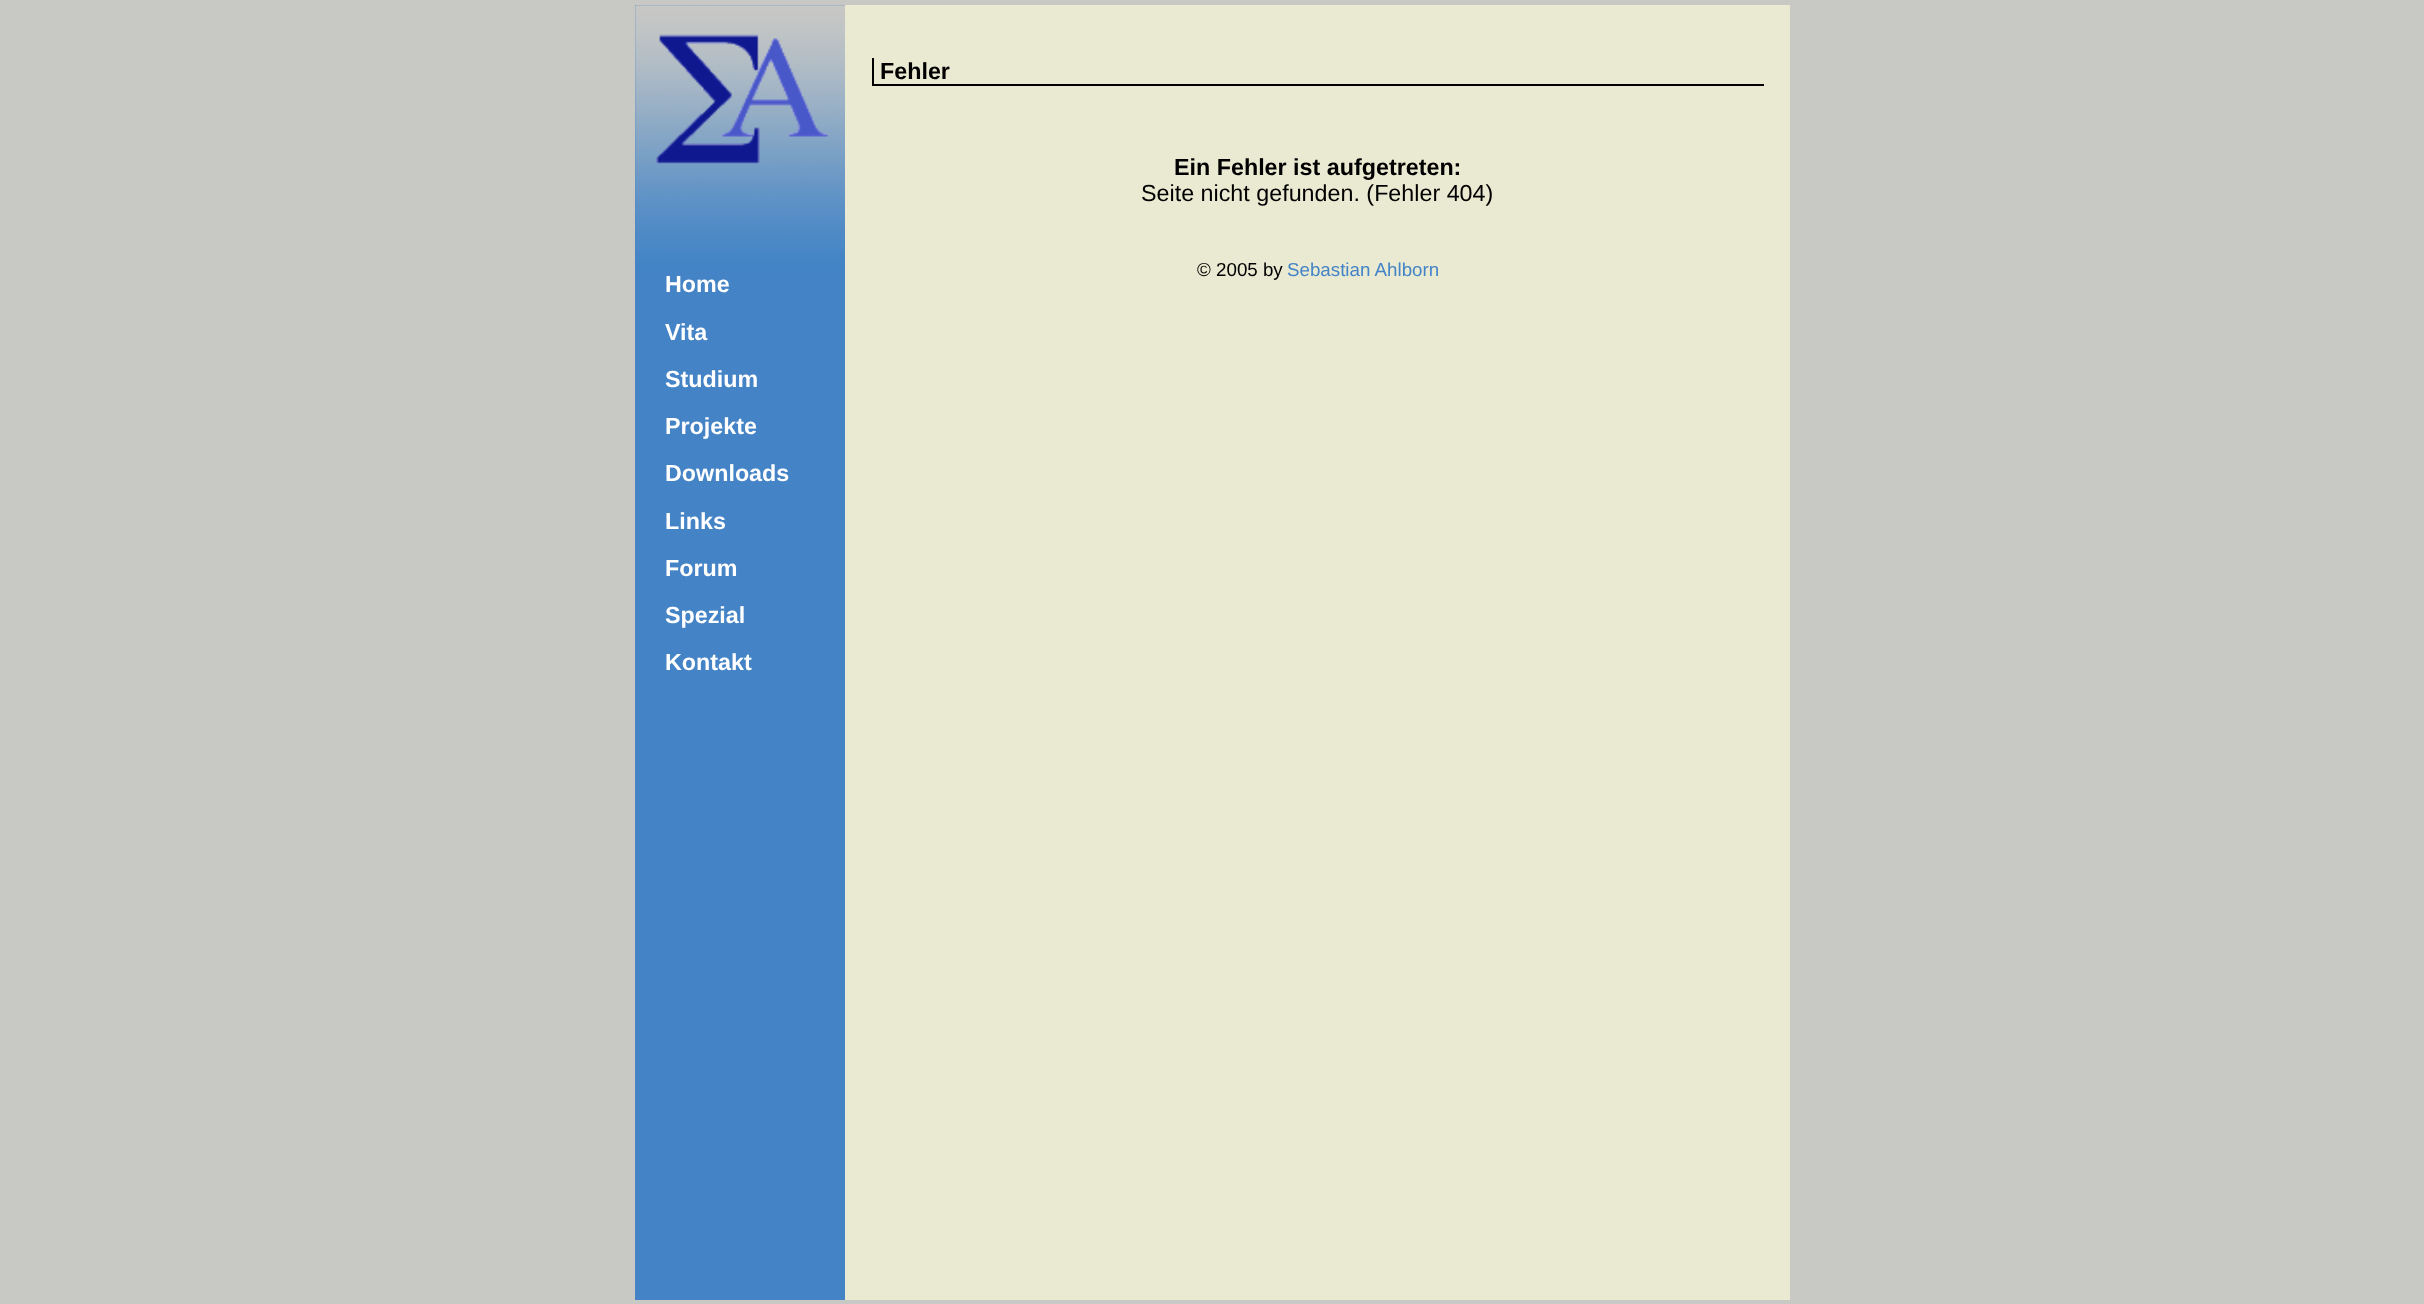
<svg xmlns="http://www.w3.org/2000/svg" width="2424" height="1304">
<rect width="100%" height="100%" fill="#c8c8c5"/>
<rect x="845" y="5" width="945" height="1295" fill="#eaead2"/>
<rect x="872" y="84" width="892" height="2" fill="#000"/>
<rect x="872" y="58" width="2" height="28" fill="#000"/>
<text x="880" y="79" style="font-family:Liberation Sans;font-size:23.3px;font-weight:bold;fill:#000">Fehler</text>
<text x="1174" y="175" style="font-family:Liberation Sans;font-size:23.3px;font-weight:bold;fill:#000">Ein Fehler ist aufgetreten:</text>
<text x="1141" y="201" style="font-family:Liberation Sans;font-size:23.3px;fill:#000">Seite nicht gefunden. (Fehler 404)</text>
<text x="1197" y="276" style="font-family:Liberation Sans;font-size:18.75px;fill:#000">© 2005 by</text>
<text x="1287" y="276" style="font-family:Liberation Sans;font-size:18.75px;fill:#4384c6">Sebastian Ahlborn</text>
<rect x="635" y="5" width="210" height="1295" fill="#4383c6"/>
<image x="635" y="5" width="210" height="263" href="media/1.png"/>
<image x="656" y="34" width="172" height="130" href="media/2.png"/>
<text x="665" y="292" style="font-family:Liberation Sans;font-size:23.3px;font-weight:bold;fill:#fff">Home</text>
<text x="665" y="340" style="font-family:Liberation Sans;font-size:23.3px;font-weight:bold;fill:#fff">Vita</text>
<text x="665" y="387" style="font-family:Liberation Sans;font-size:23.3px;font-weight:bold;fill:#fff">Studium</text>
<text x="665" y="434" style="font-family:Liberation Sans;font-size:23.3px;font-weight:bold;fill:#fff">Projekte</text>
<text x="665" y="481" style="font-family:Liberation Sans;font-size:23.3px;font-weight:bold;fill:#fff">Downloads</text>
<text x="665" y="529" style="font-family:Liberation Sans;font-size:23.3px;font-weight:bold;fill:#fff">Links</text>
<text x="665" y="576" style="font-family:Liberation Sans;font-size:23.3px;font-weight:bold;fill:#fff">Forum</text>
<text x="665" y="623" style="font-family:Liberation Sans;font-size:23.3px;font-weight:bold;fill:#fff">Spezial</text>
<text x="665" y="670" style="font-family:Liberation Sans;font-size:23.3px;font-weight:bold;fill:#fff">Kontakt</text>
</svg>
